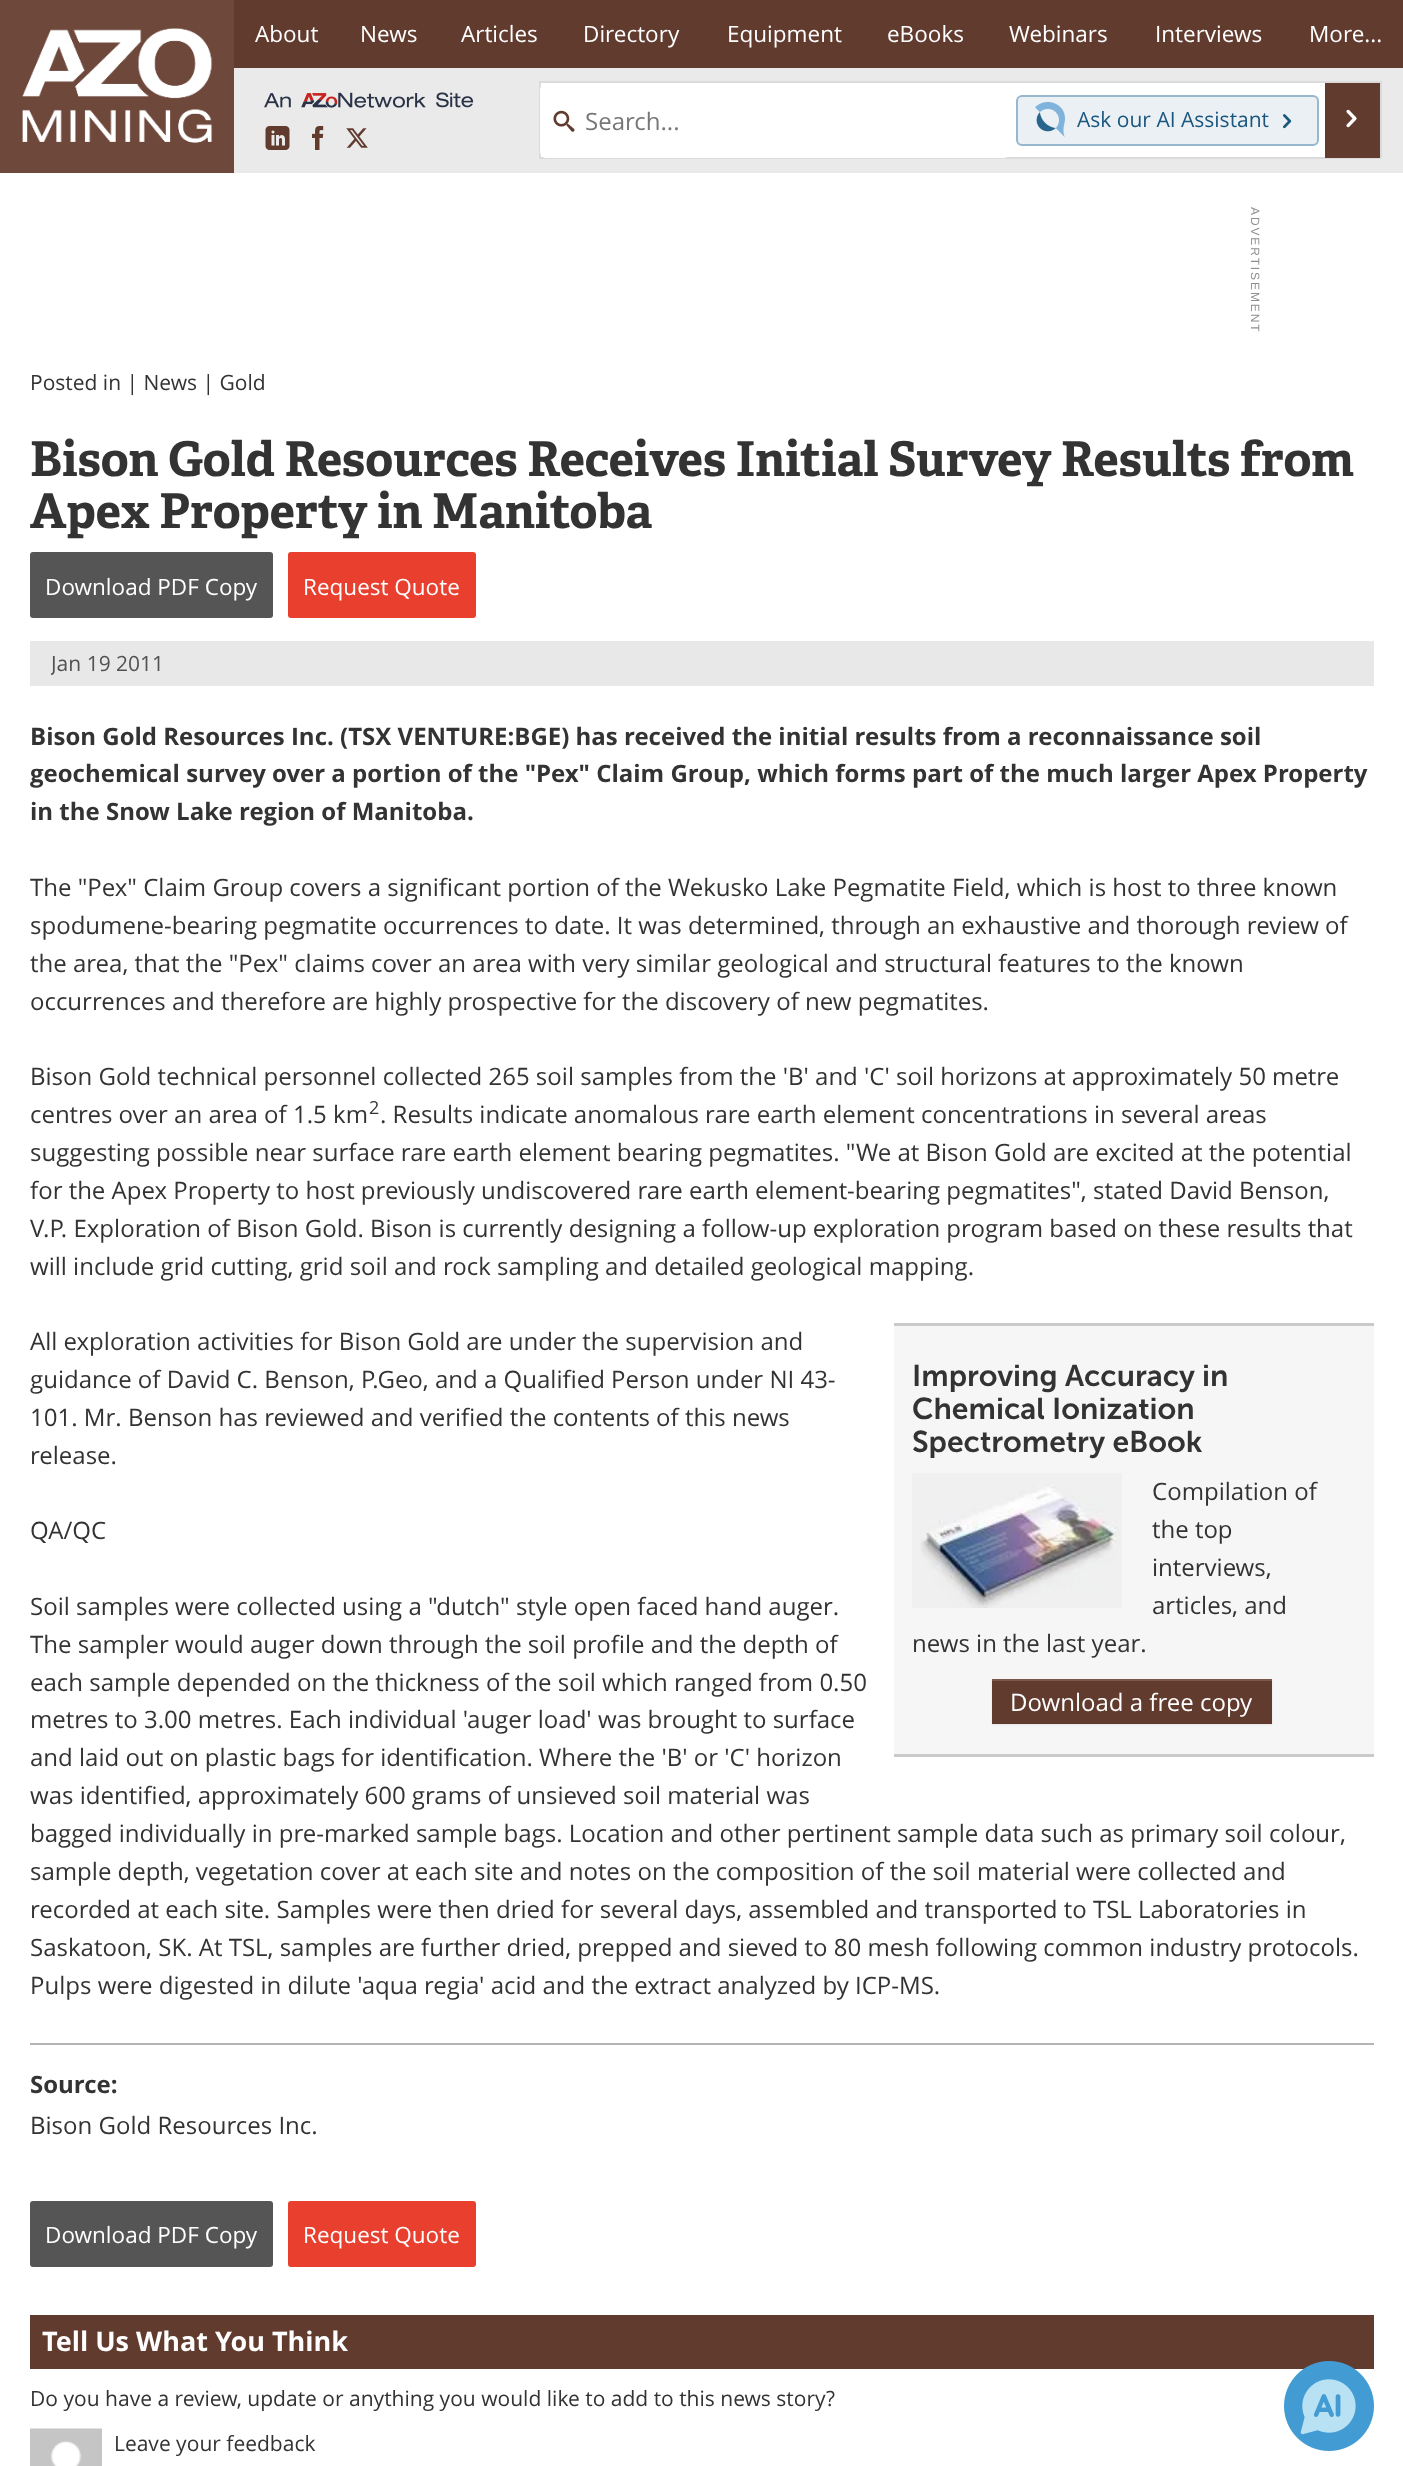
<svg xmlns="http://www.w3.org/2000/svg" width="1403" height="2466">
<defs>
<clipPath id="clip1"><rect x="51" y="648" width="1323" height="30"/></clipPath>
</defs>
<rect width="100%" height="100%" fill="#fff"/>
<rect x="234" y="68" width="1169" height="105" fill="#eaeaea"/>
<rect width="234" height="173" fill="#6f483c"/>
<image x="22" y="28" width="191" height="115" href="media/1.png"/>
<rect x="234" width="1169" height="68" fill="#623b2f"/>
<text x="255" y="42" style="font-family:Open Sans;font-size:22.5px;fill:#fff">About</text>
<text x="360" y="42" style="font-family:Open Sans;font-size:22.5px;fill:#fff">News</text>
<text x="461" y="42" style="font-family:Open Sans;font-size:22.5px;fill:#fff">Articles</text>
<text x="583" y="42" style="font-family:Open Sans;font-size:22.5px;fill:#fff">Directory</text>
<text x="727" y="42" style="font-family:Open Sans;font-size:22.5px;fill:#fff">Equipment</text>
<text x="887" y="42" style="font-family:Open Sans;font-size:22.5px;fill:#fff">eBooks</text>
<text x="1009" y="42" style="font-family:Open Sans;font-size:22.5px;fill:#fff">Webinars</text>
<text x="1155" y="42" style="font-family:Open Sans;font-size:22.5px;fill:#fff">Interviews</text>
<text x="1309" y="42" style="font-family:Open Sans;font-size:22.5px;fill:#fff">More...</text>
<image x="264" y="92" width="210" height="16" href="media/2.png"/>
<image x="265" y="126" width="25" height="24" href="media/3.png"/>
<image x="312" y="126" width="12" height="24" href="media/4.png"/>
<image x="346" y="128" width="22" height="20" href="media/5.png"/>
<rect x="541" y="83" width="784" height="74" fill="#fff"/>
<rect x="540" y="82" width="841" height="76" fill="none" stroke="#dbdbdb" stroke-width="2"/>
<rect x="540" y="84" width="470" height="74" rx="6" fill="#fff"/>
<image x="553" y="110" width="22" height="22" href="media/6.png"/>
<text x="585" y="130" style="font-family:Open Sans;font-size:24px;fill:#777">Search...</text>
<rect x="1017" y="96" width="301" height="49" rx="5" fill="#ebf0f5" stroke="#97b7ce" stroke-width="2"/>
<image x="1035" y="102" width="30" height="35" href="media/7.png"/>
<text x="1077" y="127" style="font-family:Open Sans;font-size:21px;fill:#1a567e">Ask our AI Assistant</text>
<image x="1283" y="114" width="9" height="15" href="media/8.png"/>
<rect x="1325" y="83" width="55" height="75" fill="#623b2f"/>
<image x="1346" y="109" width="11" height="19" href="media/9.png"/>
<text x="1251" y="207" transform="rotate(90 1251 207)" style="font-family:Liberation Sans;font-size:12px;letter-spacing:1.9px;fill:#8e8f91">ADVERTISEMENT</text>
<text x="30" y="390" style="font-family:Open Sans;font-size:21px;fill:#333">Posted in | News | Gold</text>
<text x="30" y="476" style="font-family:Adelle;font-size:48px;font-weight:bold;fill:#333">Bison Gold Resources Receives Initial Survey Results from</text>
<text x="30" y="528" style="font-family:Adelle;font-size:48px;font-weight:bold;fill:#333">Apex Property in Manitoba</text>
<rect x="30" y="552" width="243" height="66" rx="3" fill="#555"/>
<text x="45" y="595" style="font-family:Open Sans;font-size:22.5px;fill:#fff">Download PDF Copy</text>
<rect x="288" y="552" width="188" height="66" rx="3" fill="#e93f2e"/>
<text x="303" y="595" style="font-family:Open Sans;font-size:22.5px;fill:#fff">Request Quote</text>
<rect x="30" y="641" width="1344" height="45" fill="#e8e8e8"/>
<g clip-path="url(#clip1)">
<text x="51" y="671" style="font-family:Open Sans;font-size:21px;fill:#545154">Jan 19 2011</text>
</g>
<text x="30" y="745" style="font-family:Open Sans;font-size:24px;font-weight:bold;fill:#333">Bison Gold Resources Inc. (TSX VENTURE:BGE) has received the initial results from a reconnaissance soil</text>
<text x="30" y="782" style="font-family:Open Sans;font-size:24px;font-weight:bold;fill:#333">geochemical survey over a portion of the "Pex" Claim Group, which forms part of the much larger Apex Property</text>
<text x="30" y="820" style="font-family:Open Sans;font-size:24px;font-weight:bold;fill:#333">in the Snow Lake region of Manitoba.</text>
<text x="30" y="896" style="font-family:Open Sans;font-size:24px;fill:#333">The "Pex" Claim Group covers a significant portion of the Wekusko Lake Pegmatite Field, which is host to three known</text>
<text x="30" y="934" style="font-family:Open Sans;font-size:24px;fill:#333">spodumene-bearing pegmatite occurrences to date. It was determined, through an exhaustive and thorough review of</text>
<text x="30" y="972" style="font-family:Open Sans;font-size:24px;fill:#333">the area, that the "Pex" claims cover an area with very similar geological and structural features to the known</text>
<text x="30" y="1010" style="font-family:Open Sans;font-size:24px;fill:#333">occurrences and therefore are highly prospective for the discovery of new pegmatites.</text>
<text x="30" y="1085" style="font-family:Open Sans;font-size:24px;fill:#333">Bison Gold technical personnel collected 265 soil samples from the 'B' and 'C' soil horizons at approximately 50 metre</text>
<text x="30" y="1123" style="font-family:Open Sans;font-size:24px;fill:#333">centres over an area of 1.5 km</text>
<text x="369" y="1114" style="font-family:Open Sans;font-size:18px;fill:#333">2</text>
<text x="380" y="1123" style="font-family:Open Sans;font-size:24px;fill:#333">. Results indicate anomalous rare earth element concentrations in several areas</text>
<text x="30" y="1161" style="font-family:Open Sans;font-size:24px;fill:#333">suggesting possible near surface rare earth element bearing pegmatites. "We at Bison Gold are excited at the potential</text>
<text x="30" y="1199" style="font-family:Open Sans;font-size:24px;fill:#333">for the Apex Property to host previously undiscovered rare earth element-bearing pegmatites", stated David Benson,</text>
<text x="30" y="1237" style="font-family:Open Sans;font-size:24px;fill:#333">V.P. Exploration of Bison Gold. Bison is currently designing a follow-up exploration program based on these results that</text>
<text x="30" y="1275" style="font-family:Open Sans;font-size:24px;fill:#333">will include grid cutting, grid soil and rock sampling and detailed geological mapping.</text>
<text x="30" y="1350" style="font-family:Open Sans;font-size:24px;fill:#333">All exploration activities for Bison Gold are under the supervision and</text>
<text x="30" y="1388" style="font-family:Open Sans;font-size:24px;fill:#333">guidance of David C. Benson, P.Geo, and a Qualified Person under NI 43-</text>
<text x="30" y="1426" style="font-family:Open Sans;font-size:24px;fill:#333">101. Mr. Benson has reviewed and verified the contents of this news</text>
<text x="30" y="1464" style="font-family:Open Sans;font-size:24px;fill:#333">release.</text>
<rect x="894" y="1326" width="480" height="428" fill="#f6f6f6"/>
<rect x="894" y="1323" width="480" height="3" fill="#c9cacb"/>
<rect x="894" y="1754" width="480" height="3" fill="#c9cacb"/>
<text x="912" y="1386" style="font-family:'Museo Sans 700';font-size:30px;font-weight:600;fill:#333">Improving Accuracy in</text>
<text x="912" y="1419" style="font-family:'Museo Sans 700';font-size:30px;font-weight:600;fill:#333">Chemical Ionization</text>
<text x="912" y="1452" style="font-family:'Museo Sans 700';font-size:30px;font-weight:600;fill:#333">Spectrometry eBook</text>
<image x="912" y="1473" width="210" height="135" href="media/10.png"/>
<text x="1152" y="1500" style="font-family:Open Sans;font-size:24px;fill:#333">Compilation of</text>
<text x="1152" y="1538" style="font-family:Open Sans;font-size:24px;fill:#333">the top</text>
<text x="1152" y="1576" style="font-family:Open Sans;font-size:24px;fill:#333">interviews,</text>
<text x="1152" y="1614" style="font-family:Open Sans;font-size:24px;fill:#333">articles, and</text>
<text x="912" y="1652" style="font-family:Open Sans;font-size:24px;fill:#333">news in the last year.</text>
<rect x="992" y="1680" width="280" height="45" fill="#00000012" filter="blur(1px)"/>
<rect x="992" y="1681" width="280" height="43" fill="#623b2f"/>
<text x="1010" y="1711" style="font-family:Open Sans;font-size:24px;fill:#fff">Download a free copy</text>
<rect x="992" y="1679" width="280" height="2" fill="#7a584e"/>
<text x="30" y="1539" style="font-family:Open Sans;font-size:24px;fill:#333">QA/QC</text>
<text x="30" y="1615" style="font-family:Open Sans;font-size:24px;fill:#333">Soil samples were collected using a "dutch" style open faced hand auger.</text>
<text x="30" y="1653" style="font-family:Open Sans;font-size:24px;fill:#333">The sampler would auger down through the soil profile and the depth of</text>
<text x="30" y="1691" style="font-family:Open Sans;font-size:24px;fill:#333">each sample depended on the thickness of the soil which ranged from 0.50</text>
<text x="30" y="1728" style="font-family:Open Sans;font-size:24px;fill:#333">metres to 3.00 metres. Each individual 'auger load' was brought to surface</text>
<text x="30" y="1766" style="font-family:Open Sans;font-size:24px;fill:#333">and laid out on plastic bags for identification. Where the 'B' or 'C' horizon</text>
<text x="30" y="1804" style="font-family:Open Sans;font-size:24px;fill:#333">was identified, approximately 600 grams of unsieved soil material was</text>
<text x="30" y="1842" style="font-family:Open Sans;font-size:24px;fill:#333">bagged individually in pre-marked sample bags. Location and other pertinent sample data such as primary soil colour,</text>
<text x="30" y="1880" style="font-family:Open Sans;font-size:24px;fill:#333">sample depth, vegetation cover at each site and notes on the composition of the soil material were collected and</text>
<text x="30" y="1918" style="font-family:Open Sans;font-size:24px;fill:#333">recorded at each site. Samples were then dried for several days, assembled and transported to TSL Laboratories in</text>
<text x="30" y="1956" style="font-family:Open Sans;font-size:24px;fill:#333">Saskatoon, SK. At TSL, samples are further dried, prepped and sieved to 80 mesh following common industry protocols.</text>
<text x="30" y="1994" style="font-family:Open Sans;font-size:24px;fill:#333">Pulps were digested in dilute 'aqua regia' acid and the extract analyzed by ICP-MS.</text>
<rect x="30" y="2043" width="1344" height="2" fill="#b6b5b5"/>
<text x="30" y="2093" style="font-family:Open Sans;font-size:24px;font-weight:bold;fill:#333">Source:</text>
<text x="30" y="2134" style="font-family:Open Sans;font-size:24px;fill:#333">Bison Gold Resources Inc.</text>
<rect x="30" y="2201" width="243" height="66" rx="3" fill="#555"/>
<text x="45" y="2243" style="font-family:Open Sans;font-size:22.5px;fill:#fff">Download PDF Copy</text>
<rect x="288" y="2201" width="188" height="66" rx="3" fill="#e93f2e"/>
<text x="303" y="2243" style="font-family:Open Sans;font-size:22.5px;fill:#fff">Request Quote</text>
<rect x="30" y="2315" width="1344" height="54" fill="#623b2f"/>
<text x="42" y="2351" style="font-family:Open Sans;font-size:27px;font-weight:bold;fill:#fff">Tell Us What You Think</text>
<text x="30" y="2406" style="font-family:Open Sans;font-size:21px;fill:#333">Do you have a review, update or anything you would like to add to this news story?</text>
<image x="30" y="2428" width="72" height="38" href="media/11.png"/>
<text x="114" y="2451" style="font-family:Open Sans;font-size:21px;fill:#333">Leave your feedback</text>
<image x="1284" y="2361" width="90" height="90" href="media/12.png"/>
</svg>
